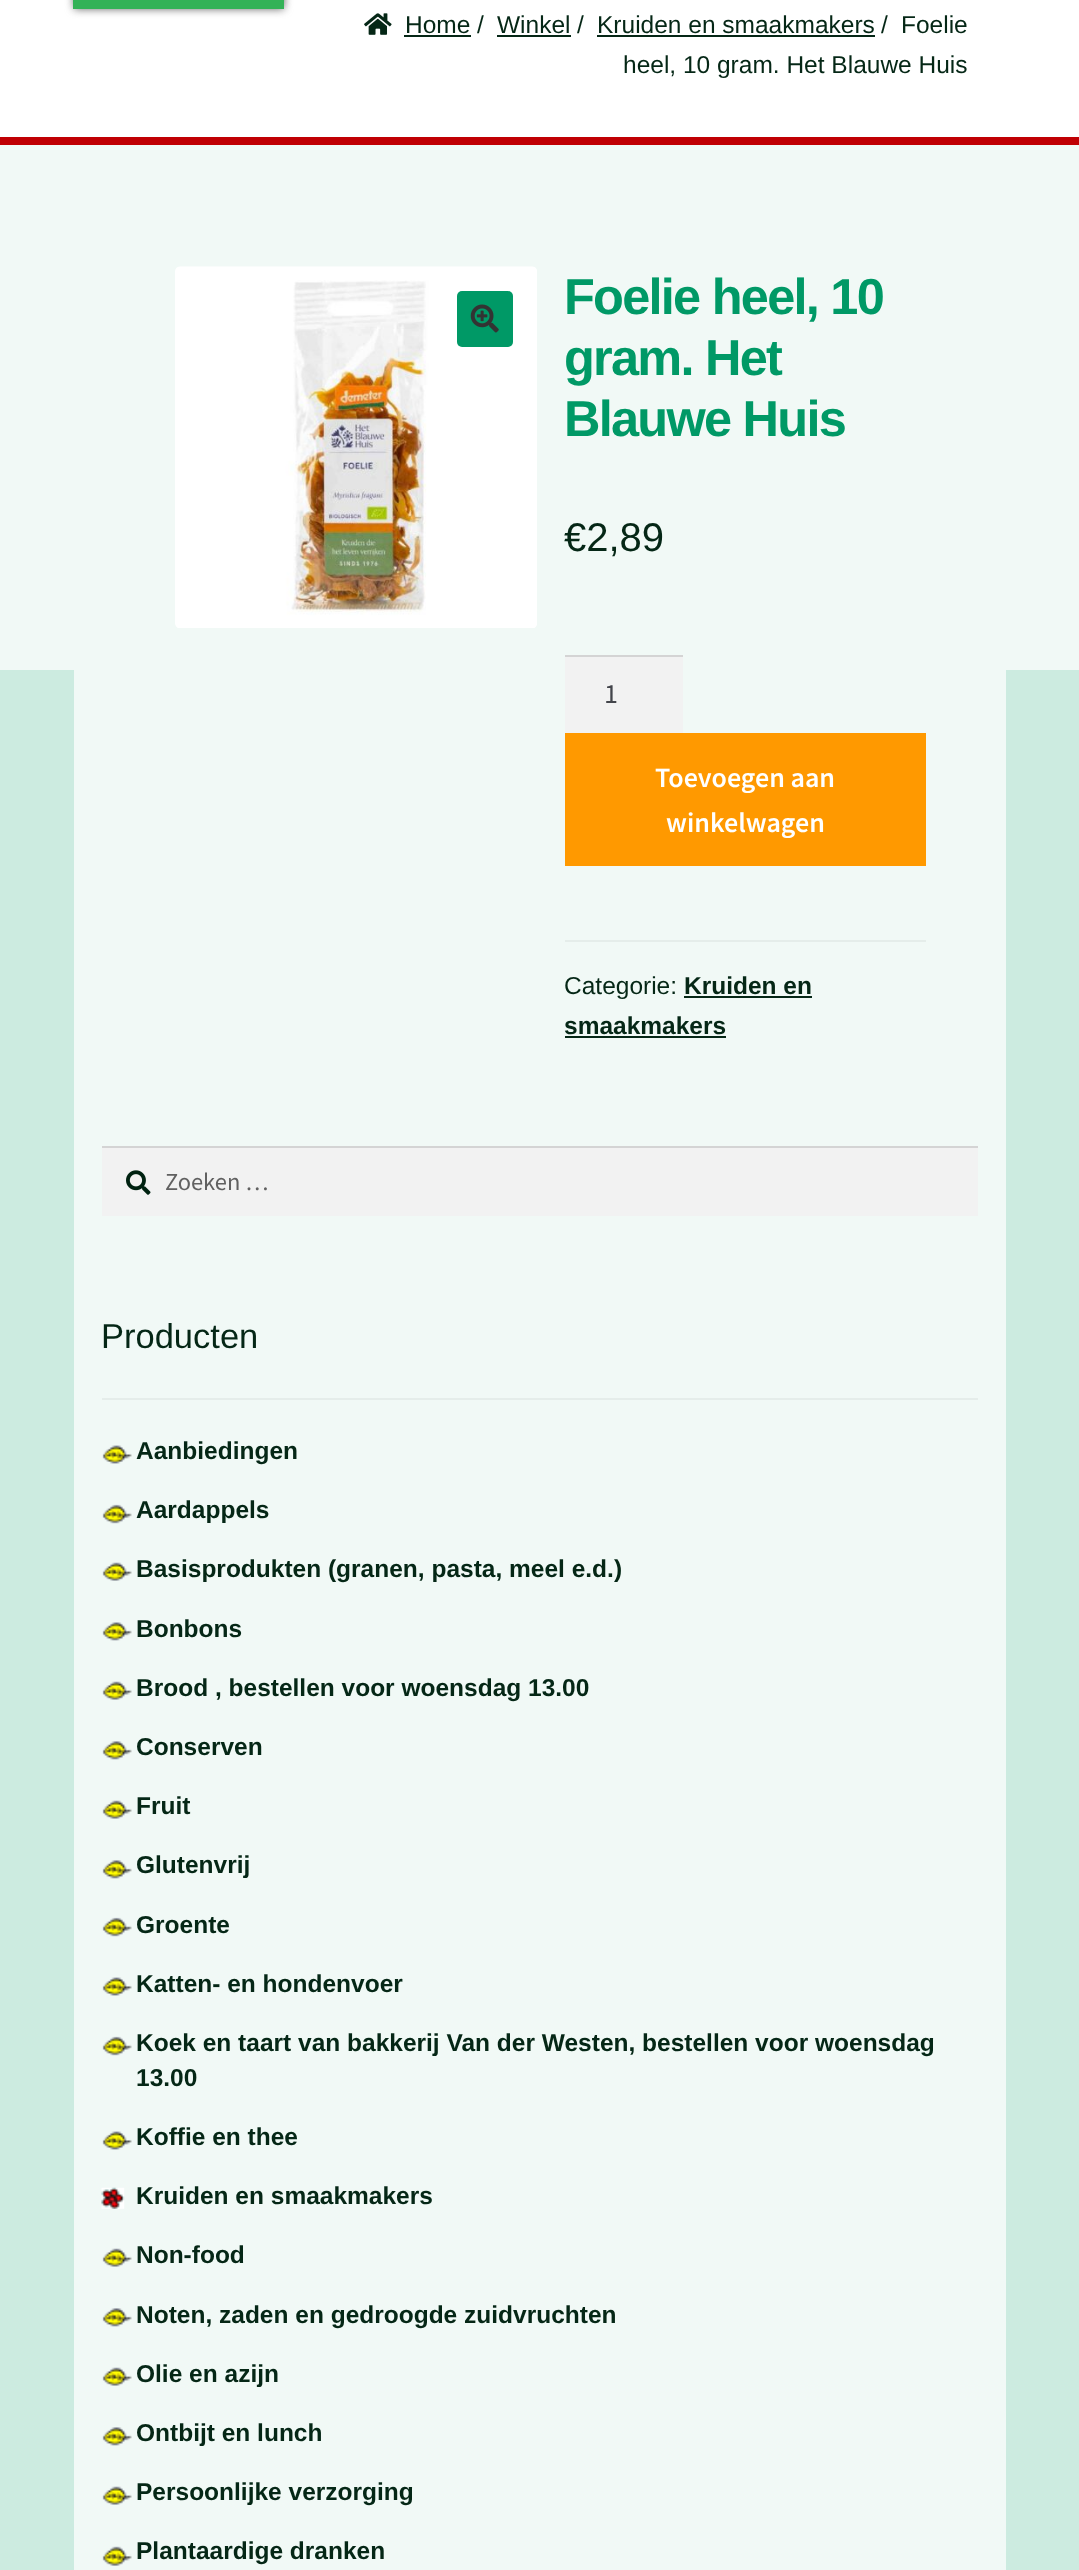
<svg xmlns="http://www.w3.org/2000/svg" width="1079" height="2570">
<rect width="100%" height="100%" fill="#fff"/>
<rect x="74" y="-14" width="210" height="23" fill="#666" filter="blur(4.5px)"/>
<rect x="73" width="211" height="9" fill="#33b257"/>
<image x="364" y="13" width="28" height="22" href="media/1.png"/>
<text x="405" y="33" style="font-family:Liberation Sans;font-size:24.5px;fill:#052716">Home</text>
<rect x="404" y="35" width="67" height="2" fill="#052716"/>
<text x="477" y="33" style="font-family:Liberation Sans;font-size:24.5px;fill:#052716">/</text>
<text x="497" y="33" style="font-family:Liberation Sans;font-size:24.5px;fill:#052716">Winkel</text>
<rect x="497" y="35" width="74" height="2" fill="#052716"/>
<text x="577" y="33" style="font-family:Liberation Sans;font-size:24.5px;fill:#052716">/</text>
<text x="597" y="33" style="font-family:Liberation Sans;font-size:24.5px;fill:#052716">Kruiden en smaakmakers</text>
<rect x="597" y="35" width="278" height="2" fill="#052716"/>
<text x="881" y="33" style="font-family:Liberation Sans;font-size:24.5px;fill:#052716">/</text>
<text x="901" y="33" style="font-family:Liberation Sans;font-size:24.5px;fill:#052716">Foelie</text>
<text x="623" y="73" style="font-family:Liberation Sans;font-size:24.5px;fill:#052716">heel, 10 gram. Het Blauwe Huis</text>
<rect y="670" width="1079" height="1900" fill="#ccebe0"/>
<rect y="145" width="1079" height="525" fill="#f1f9f6"/>
<rect y="137" width="1079" height="8" fill="#c00004"/>
<rect x="74" y="670" width="932" height="1900" fill="#f1f9f6"/>
<image x="175" y="266" width="362" height="362" href="media/2.png"/>
<rect x="457" y="291" width="56" height="56" rx="5" fill="#096"/>
<image x="470" y="304" width="29" height="29" href="media/3.png"/>
<text x="564" y="314" style="font-family:Liberation Sans;font-size:50.5px;font-weight:bold;letter-spacing:-1.75px;fill:#096">Foelie heel, 10</text>
<text x="564" y="375" style="font-family:Liberation Sans;font-size:50.5px;font-weight:bold;letter-spacing:-1.75px;fill:#096">gram. Het</text>
<text x="564" y="436" style="font-family:Liberation Sans;font-size:50.5px;font-weight:bold;letter-spacing:-1.75px;fill:#096">Blauwe Huis</text>
<text x="564" y="551" style="font-family:Liberation Sans;font-size:40px;fill:#052716">€2,89</text>
<rect x="565" y="657" width="118" height="76" fill="#f2f2f2"/>
<rect x="565" y="655" width="118" height="2" fill="#d4d4d4"/>
<text x="604" y="703" style="font-family:Source Sans Pro;font-size:28px;fill:#43454b">1</text>
<rect x="565" y="733" width="361" height="133" fill="#f90"/>
<text x="655" y="787" style="font-family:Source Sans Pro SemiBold;font-size:28px;font-weight:600;fill:#fff">Toevoegen aan</text>
<text x="666" y="832" style="font-family:Source Sans Pro SemiBold;font-size:28px;font-weight:600;fill:#fff">winkelwagen</text>
<rect x="565" y="940" width="361" height="2" fill="#e5edea"/>
<text x="564" y="994" style="font-family:Liberation Sans;font-size:24.5px;fill:#052716">Categorie:</text>
<text x="684" y="994" style="font-family:Liberation Sans;font-size:24.5px;font-weight:bold;fill:#052716">Kruiden en</text>
<rect x="684" y="996" width="128" height="2" fill="#052716"/>
<text x="564" y="1034" style="font-family:Liberation Sans;font-size:24.5px;font-weight:bold;fill:#052716">smaakmakers</text>
<rect x="565" y="1036" width="161" height="2" fill="#052716"/>
<rect x="102" y="1148" width="876" height="68" fill="#f2f2f2"/>
<image x="126" y="1170" width="25" height="25" href="media/4.png"/>
<rect x="102" y="1146" width="876" height="2" fill="#d4d4d4"/>
<text x="165" y="1190" style="font-family:Source Sans Pro;font-size:24.5px;fill:#616161">Zoeken …</text>
<rect x="102" y="1398" width="876" height="2" fill="#e5edea"/>
<text x="101" y="1348" style="font-family:Liberation Sans;font-size:34.5px;fill:#052716">Producten</text>
<image x="102" y="1445" width="30" height="19" href="media/5.png"/>
<text x="136" y="1459" style="font-family:Liberation Sans;font-size:24.5px;font-weight:bold;fill:#052716">Aanbiedingen</text>
<image x="102" y="1504" width="30" height="20" href="media/6.png"/>
<text x="136" y="1518" style="font-family:Liberation Sans;font-size:24.5px;font-weight:bold;fill:#052716">Aardappels</text>
<image x="102" y="1562" width="30" height="19" href="media/7.png"/>
<text x="136" y="1577" style="font-family:Liberation Sans;font-size:24.5px;font-weight:bold;fill:#052716">Basisprodukten (granen, pasta, meel e.d.)</text>
<image x="102" y="1622" width="30" height="19" href="media/8.png"/>
<text x="136" y="1637" style="font-family:Liberation Sans;font-size:24.5px;font-weight:bold;fill:#052716">Bonbons</text>
<image x="102" y="1681" width="30" height="19" href="media/7.png"/>
<text x="136" y="1696" style="font-family:Liberation Sans;font-size:24.5px;font-weight:bold;fill:#052716">Brood , bestellen voor woensdag 13.00</text>
<image x="102" y="1741" width="30" height="19" href="media/9.png"/>
<text x="136" y="1755" style="font-family:Liberation Sans;font-size:24.5px;font-weight:bold;fill:#052716">Conserven</text>
<image x="102" y="1800" width="30" height="19" href="media/7.png"/>
<text x="136" y="1814" style="font-family:Liberation Sans;font-size:24.5px;font-weight:bold;fill:#052716">Fruit</text>
<image x="102" y="1860" width="30" height="19" href="media/9.png"/>
<text x="136" y="1873" style="font-family:Liberation Sans;font-size:24.5px;font-weight:bold;fill:#052716">Glutenvrij</text>
<image x="102" y="1917" width="30" height="20" href="media/10.png"/>
<text x="136" y="1933" style="font-family:Liberation Sans;font-size:24.5px;font-weight:bold;fill:#052716">Groente</text>
<image x="102" y="1977" width="30" height="19" href="media/11.png"/>
<text x="136" y="1992" style="font-family:Liberation Sans;font-size:24.5px;font-weight:bold;fill:#052716">Katten- en hondenvoer</text>
<image x="102" y="2036" width="30" height="20" href="media/10.png"/>
<text x="136" y="2051" style="font-family:Liberation Sans;font-size:24.5px;font-weight:bold;fill:#052716">Koek en taart van bakkerij Van der Westen, bestellen voor woensdag</text>
<text x="136" y="2086" style="font-family:Liberation Sans;font-size:24.5px;font-weight:bold;fill:#052716">13.00</text>
<image x="102" y="2131" width="30" height="19" href="media/11.png"/>
<text x="136" y="2145" style="font-family:Liberation Sans;font-size:24.5px;font-weight:bold;fill:#052716">Koffie en thee</text>
<image x="101" y="2187" width="24" height="22" href="media/12.png"/>
<text x="136" y="2204" style="font-family:Liberation Sans;font-size:24.5px;font-weight:bold;fill:#052716">Kruiden en smaakmakers</text>
<image x="102" y="2248" width="30" height="19" href="media/7.png"/>
<text x="136" y="2263" style="font-family:Liberation Sans;font-size:24.5px;font-weight:bold;fill:#052716">Non-food</text>
<image x="102" y="2308" width="30" height="19" href="media/9.png"/>
<text x="136" y="2323" style="font-family:Liberation Sans;font-size:24.5px;font-weight:bold;fill:#052716">Noten, zaden en gedroogde zuidvruchten</text>
<image x="102" y="2367" width="30" height="19" href="media/7.png"/>
<text x="136" y="2382" style="font-family:Liberation Sans;font-size:24.5px;font-weight:bold;fill:#052716">Olie en azijn</text>
<image x="102" y="2427" width="30" height="19" href="media/9.png"/>
<text x="136" y="2441" style="font-family:Liberation Sans;font-size:24.5px;font-weight:bold;fill:#052716">Ontbijt en lunch</text>
<image x="102" y="2486" width="30" height="19" href="media/7.png"/>
<text x="136" y="2500" style="font-family:Liberation Sans;font-size:24.5px;font-weight:bold;fill:#052716">Persoonlijke verzorging</text>
<image x="102" y="2546" width="30" height="20" href="media/13.png"/>
<text x="136" y="2559" style="font-family:Liberation Sans;font-size:24.5px;font-weight:bold;fill:#052716">Plantaardige dranken</text>
</svg>
